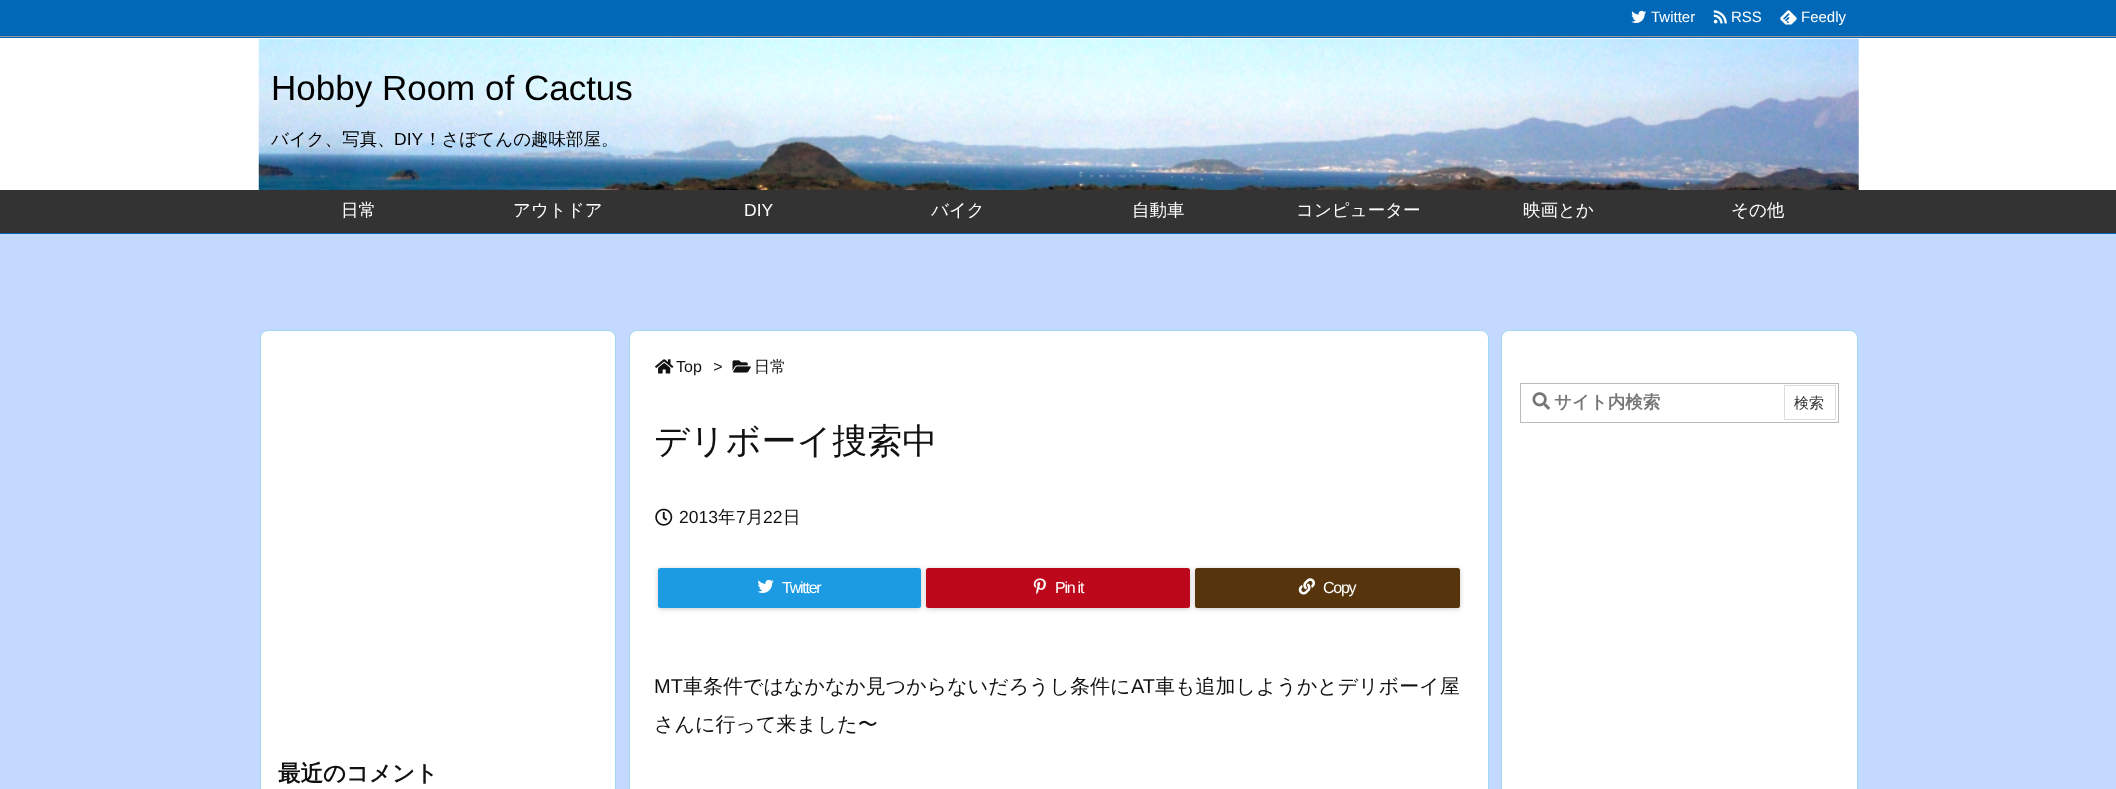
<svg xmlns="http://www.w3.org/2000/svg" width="2116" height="789">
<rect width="100%" height="100%" fill="#c3d9ff"/>
<rect width="2116" height="38" fill="#0068b7"/>
<rect y="36" width="2116" height="1" fill="#999"/>
<image x="1631" y="10" width="16" height="13" href="media/1.png"/>
<text x="1651" y="22" style="font-family:Liberation Sans;font-size:15px;fill:#fff">Twitter</text>
<image x="1713" y="10" width="14" height="14" href="media/2.png"/>
<text x="1731" y="22" style="font-family:Liberation Sans;font-size:15px;fill:#fff">RSS</text>
<image x="1780" y="10" width="17" height="15" href="media/3.png"/>
<text x="1801" y="22" style="font-family:Liberation Sans;font-size:15px;fill:#fff">Feedly</text>
<rect y="190" width="2116" height="43" fill="#333"/>
<rect y="233" width="2116" height="1" fill="#0068b7"/>
<text x="341" y="216" style="font-family:WenQuanYi Zen Hei;font-size:17.5px;font-weight:500;fill:#fff">日常</text>
<text x="513" y="216" style="font-family:WenQuanYi Zen Hei;font-size:17.5px;font-weight:500;fill:#fff">アウトドア</text>
<text x="744" y="216" style="font-family:Liberation Sans;font-size:17.5px;fill:#fff">DIY</text>
<text x="931" y="216" style="font-family:WenQuanYi Zen Hei;font-size:17.5px;font-weight:500;fill:#fff">バイク</text>
<text x="1132" y="216" style="font-family:WenQuanYi Zen Hei;font-size:17.5px;font-weight:500;fill:#fff">自動車</text>
<text x="1296" y="216" style="font-family:WenQuanYi Zen Hei;font-size:17.5px;font-weight:500;fill:#fff">コンピューター</text>
<text x="1523" y="216" style="font-family:WenQuanYi Zen Hei;font-size:17.5px;font-weight:500;fill:#fff">映画とか</text>
<text x="1731" y="216" style="font-family:WenQuanYi Zen Hei;font-size:17.5px;font-weight:500;fill:#fff">その他</text>
<rect y="38" width="2116" height="152" fill="#fff"/>
<image x="258" y="38" width="1601" height="152" href="media/4.png"/>
<text x="271" y="100" style="font-family:Liberation Sans;font-size:35px;fill:#000">Hobby Room of Cactus</text>
<text x="271" y="145" style="font-family:WenQuanYi Zen Hei;font-size:17.5px;font-weight:500;fill:#000">バイク、写真、</text>
<text x="394" y="145" style="font-family:Liberation Sans;font-size:17.5px;fill:#000">DIY</text>
<text x="424" y="145" style="font-family:WenQuanYi Zen Hei;font-size:17.5px;font-weight:500;fill:#000">！さぼてんの趣味部屋。</text>
<rect x="629.5" y="330.5" width="859" height="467" rx="7.5" fill="#fff" stroke="#a0d8ef"/>
<image x="655" y="359" width="19" height="15" href="media/5.png"/>
<text x="676" y="372" style="font-family:Liberation Sans;font-size:16px;fill:#111">Top</text>
<text x="713" y="372" style="font-family:Liberation Sans;font-size:16px;font-style:italic;fill:#111">&gt;</text>
<image x="732" y="360" width="19" height="13" href="media/6.png"/>
<text x="754" y="372" style="font-family:WenQuanYi Zen Hei;font-size:16px;font-weight:500;fill:#111">日常</text>
<text x="654" y="453" style="font-family:WenQuanYi Zen Hei;font-size:35px;font-weight:500;fill:#111">デリボーイ捜索中</text>
<image x="655" y="508" width="18" height="18" href="media/7.png"/>
<text x="679" y="523" style="font-family:Liberation Sans;font-size:17.5px;fill:#111">2013</text>
<text x="718" y="523" style="font-family:WenQuanYi Zen Hei;font-size:17.5px;font-weight:500;fill:#111">年</text>
<text x="736" y="523" style="font-family:Liberation Sans;font-size:17.5px;fill:#111">7</text>
<text x="746" y="523" style="font-family:WenQuanYi Zen Hei;font-size:17.5px;font-weight:500;fill:#111">月</text>
<text x="763" y="523" style="font-family:Liberation Sans;font-size:17.5px;fill:#111">22</text>
<text x="783" y="523" style="font-family:WenQuanYi Zen Hei;font-size:17.5px;font-weight:500;fill:#111">日</text>
<rect x="658" y="569" width="263" height="40" rx="2.5" fill="#00000033" filter="blur(2.5px)"/>
<rect x="658" y="568" width="263" height="40" rx="2.5" fill="#1c9be2"/>
<image x="757" y="579" width="17" height="14" href="media/8.png"/>
<text x="782" y="593" style="font-family:Liberation Sans;font-size:16px;letter-spacing:-1.25px;fill:#fff">Twitter</text>
<rect x="926" y="569" width="264" height="40" rx="2.5" fill="#00000033" filter="blur(2.5px)"/>
<rect x="926" y="568" width="264" height="40" rx="2.5" fill="#bd081c"/>
<image x="1033" y="578" width="13" height="17" href="media/9.png"/>
<text x="1055" y="593" style="font-family:Liberation Sans;font-size:16px;letter-spacing:-1.25px;fill:#fff">Pin it</text>
<rect x="1195" y="569" width="265" height="40" rx="2.5" fill="#00000033" filter="blur(2.5px)"/>
<rect x="1195" y="568" width="265" height="40" rx="2.5" fill="#56350d"/>
<image x="1298" y="578" width="17" height="17" href="media/10.png"/>
<text x="1323" y="593" style="font-family:Liberation Sans;font-size:16px;letter-spacing:-1.25px;fill:#fff">Copy</text>
<text x="654" y="693" style="font-family:Liberation Sans;font-size:20px;fill:#111">MT</text>
<text x="683" y="693" style="font-family:WenQuanYi Zen Hei;font-size:20px;font-weight:500;fill:#111">車条件ではなかなか見つからないだろうし条件に</text>
<text x="1131" y="693" style="font-family:Liberation Sans;font-size:20px;fill:#111">AT</text>
<text x="1155" y="693" style="font-family:WenQuanYi Zen Hei;font-size:20px;font-weight:500;fill:#111">車も追加しようかとデリボーイ屋</text>
<text x="654" y="731" style="font-family:WenQuanYi Zen Hei;font-size:20px;font-weight:500;fill:#111">さんに行って来ました〜</text>
<rect x="260.5" y="330.5" width="355" height="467" rx="7.5" fill="#fff" stroke="#a0d8ef"/>
<text x="278" y="781" style="font-family:WenQuanYi Zen Hei;font-size:22.5px;font-weight:bold;fill:#111">最近のコメント</text>
<rect x="1501.5" y="330.5" width="356" height="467" rx="7.5" fill="#fff" stroke="#a0d8ef"/>
<rect x="1520.5" y="383.5" width="318" height="39" fill="none" stroke="#bbb"/>
<image x="1532" y="392" width="18" height="18" href="media/11.png"/>
<text x="1554" y="408" style="font-family:WenQuanYi Zen Hei;font-size:17.5px;font-weight:bold;fill:#767676">サイト内検索</text>
<rect x="1784.5" y="385.5" width="51" height="34" fill="none" stroke="#ddd"/>
<text x="1794" y="408" style="font-family:WenQuanYi Zen Hei;font-size:15px;font-weight:500;fill:#333">検索</text>
</svg>
